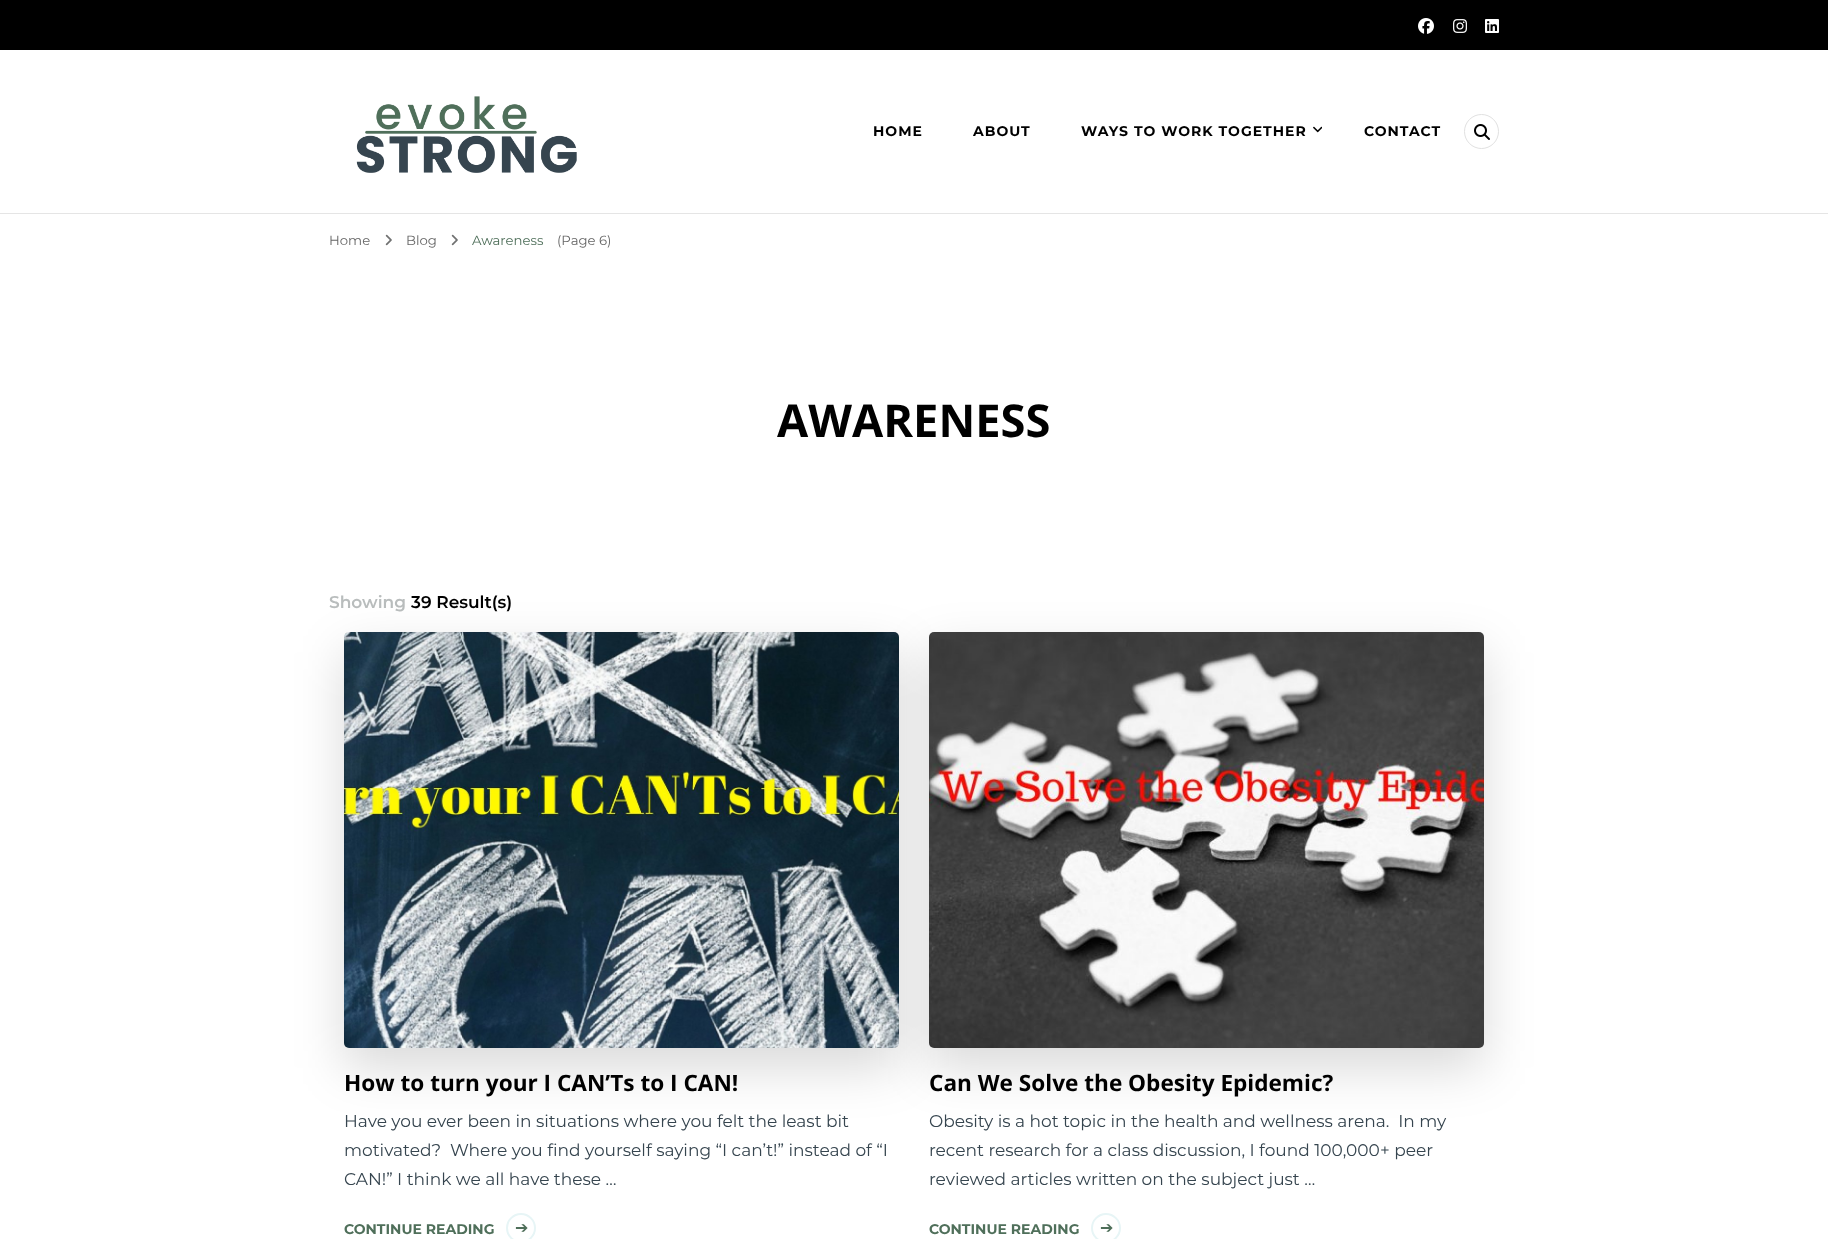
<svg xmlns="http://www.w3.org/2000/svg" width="1828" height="1239">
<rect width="100%" height="100%" fill="#fff"/>
<rect y="213" width="1828" height="1" fill="#e5e5e5"/>
<rect width="1828" height="50" fill="#000"/>
<image x="1418" y="18" width="16" height="16" href="media/1.png"/>
<image x="1453" y="19" width="14" height="14" href="media/2.png"/>
<image x="1485" y="19" width="14" height="14" href="media/3.png"/>
<image x="356" y="96" width="221" height="77" href="media/4.png"/>
<text x="873" y="136" style="font-family:Montserrat;font-size:14px;font-weight:bold;letter-spacing:1px;fill:#000">HOME</text>
<text x="973" y="136" style="font-family:Montserrat;font-size:14px;font-weight:bold;letter-spacing:1px;fill:#000">ABOUT</text>
<text x="1081" y="136" style="font-family:Montserrat;font-size:14px;font-weight:bold;letter-spacing:1px;fill:#000">WAYS TO WORK TOGETHER</text>
<image x="1313" y="126" width="9" height="7" href="media/5.png"/>
<text x="1364" y="136" style="font-family:Montserrat;font-size:14px;font-weight:bold;letter-spacing:1px;fill:#000">CONTACT</text>
<circle cx="1481.5" cy="131.5" r="17" fill="none" stroke="#e1e1e1"/>
<image x="1474" y="124" width="16" height="16" href="media/6.png"/>
<text x="329" y="245" style="font-family:Montserrat;font-size:13.25px;fill:#666">Home</text>
<image x="385" y="234" width="7" height="12" href="media/7.png"/>
<text x="406" y="245" style="font-family:Montserrat;font-size:13.25px;fill:#666">Blog</text>
<image x="451" y="234" width="7" height="12" href="media/7.png"/>
<text x="472" y="245" style="font-family:Montserrat;font-size:13.25px;fill:#4f6f5a">Awareness</text>
<text x="557" y="245" style="font-family:Montserrat;font-size:13.25px;fill:#666">(Page 6)</text>
<text x="777" y="437" style="font-family:Open Sans;font-size:45.25px;font-weight:bold;fill:#000">AWARENESS</text>
<text x="329" y="608" style="font-family:Montserrat;font-size:17px;font-weight:600;fill:#b9bdbd">Showing</text>
<text x="411" y="608" style="font-family:Montserrat;font-size:17px;font-weight:600;fill:#000">39 Result(s)</text>
<rect x="344" y="652" width="555" height="416" rx="5" fill="#00000026" filter="blur(25px)"/>
<image x="344" y="632" width="555" height="416" href="media/8.png"/>
<text x="344" y="1091" style="font-family:Open Sans;font-size:22.6px;font-weight:bold;fill:#000">How to turn your I CAN’Ts to I CAN!</text>
<text x="344" y="1127" style="font-family:Montserrat;font-size:17px;fill:#36454f">Have you ever been in situations where you felt the least bit</text>
<text x="344" y="1156" style="font-family:Montserrat;font-size:17px;fill:#36454f" xml:space="preserve">motivated?  Where you find yourself saying “I can’t!” instead of “I</text>
<text x="344" y="1185" style="font-family:Montserrat;font-size:17px;fill:#36454f">CAN!” I think we all have these …</text>
<text x="344" y="1234" style="font-family:Montserrat;font-size:14px;font-weight:bold;fill:#4f6f5a">CONTINUE READING</text>
<circle cx="521" cy="1228" r="14" fill="none" stroke="#e7f5f6" stroke-width="2"/>
<text x="515" y="1233" style="font-family:DejaVu Sans;font-size:16px;fill:#4f6f5a">➔</text>
<rect x="929" y="652" width="555" height="416" rx="5" fill="#00000026" filter="blur(25px)"/>
<image x="929" y="632" width="555" height="416" href="media/9.png"/>
<text x="929" y="1091" style="font-family:Open Sans;font-size:22.6px;font-weight:bold;fill:#000">Can We Solve the Obesity Epidemic?</text>
<text x="929" y="1127" style="font-family:Montserrat;font-size:17px;fill:#36454f" xml:space="preserve">Obesity is a hot topic in the health and wellness arena.  In my</text>
<text x="929" y="1156" style="font-family:Montserrat;font-size:17px;fill:#36454f">recent research for a class discussion, I found 100,000+ peer</text>
<text x="929" y="1185" style="font-family:Montserrat;font-size:17px;fill:#36454f">reviewed articles written on the subject just …</text>
<text x="929" y="1234" style="font-family:Montserrat;font-size:14px;font-weight:bold;fill:#4f6f5a">CONTINUE READING</text>
<circle cx="1106" cy="1228" r="14" fill="none" stroke="#e7f5f6" stroke-width="2"/>
<text x="1100" y="1233" style="font-family:DejaVu Sans;font-size:16px;fill:#4f6f5a">➔</text>
</svg>
